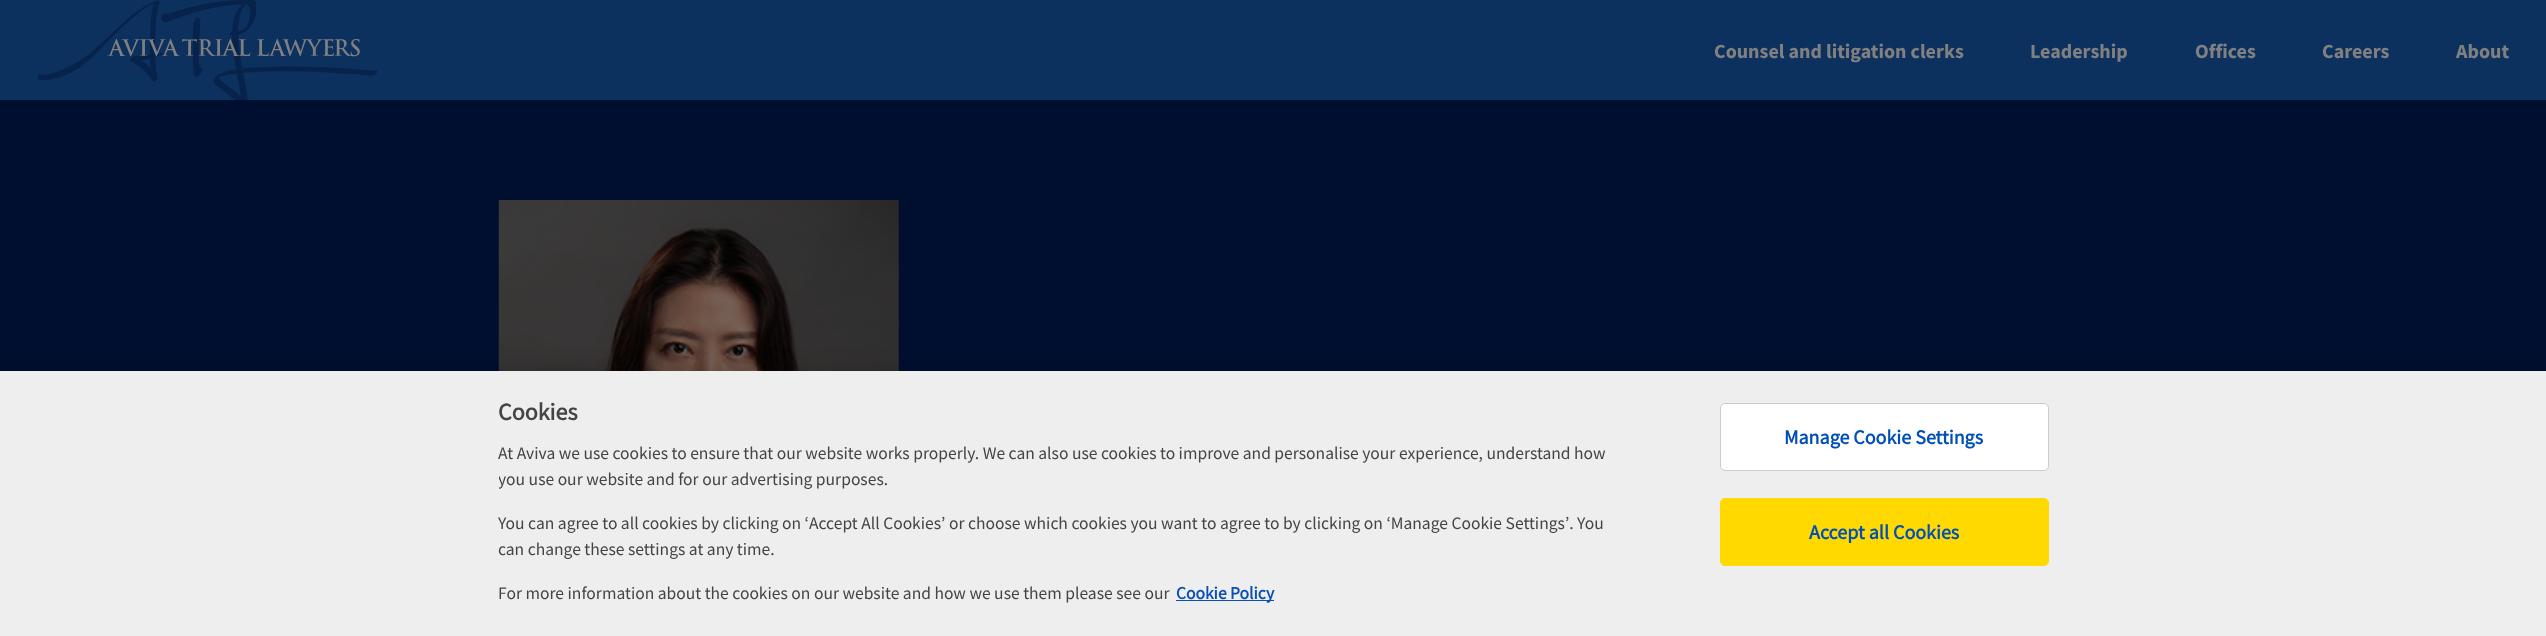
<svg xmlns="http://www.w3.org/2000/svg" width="2546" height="636">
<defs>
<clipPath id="clip1"><rect x="499" y="396" width="1149" height="228"/></clipPath>
</defs>
<rect width="100%" height="100%" fill="#0d315f"/>
<image x="38" y="0" width="340" height="100" href="media/1.png"/>
<text x="1714" y="58" style="font-family:Source Sans Pro;font-size:20px;font-weight:bold;fill:#808080">Counsel and litigation clerks</text>
<text x="2030" y="58" style="font-family:Source Sans Pro;font-size:20px;font-weight:bold;fill:#808080">Leadership</text>
<text x="2195" y="58" style="font-family:Source Sans Pro;font-size:20px;font-weight:bold;fill:#808080">Offices</text>
<text x="2322" y="58" style="font-family:Source Sans Pro;font-size:20px;font-weight:bold;fill:#808080">Careers</text>
<text x="2456" y="58" style="font-family:Source Sans Pro;font-size:20px;font-weight:bold;fill:#808080">About</text>
<rect y="100" width="2546" height="271" fill="#000f30"/>
<image x="498" y="200" width="401" height="171" href="media/2.png"/>
<rect y="371" width="2546" height="265" fill="#00000033" filter="blur(11px)"/>
<rect y="371" width="2546" height="265" fill="#eee"/>
<text x="498" y="420" style="font-family:'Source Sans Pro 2';font-size:24px;font-weight:bold;fill:#444">Cookies</text>
<text x="498" y="459" style="font-family:Source Sans Pro;font-size:17.5px;fill:#444">At Aviva we use cookies to ensure that our website works properly. We can also use cookies to improve and personalise your experience, understand how</text>
<g clip-path="url(#clip1)">
<text x="498" y="485" style="font-family:Source Sans Pro;font-size:17.5px;fill:#444">you use our website and for our advertising purposes.</text>
</g>
<text x="498" y="529" style="font-family:Source Sans Pro;font-size:17.5px;fill:#444">You can agree to all cookies by clicking on ‘Accept All Cookies’ or choose which cookies you want to agree to by clicking on ‘Manage Cookie Settings’. You</text>
<text x="498" y="555" style="font-family:Source Sans Pro;font-size:17.5px;fill:#444">can change these settings at any time.</text>
<text x="498" y="599" style="font-family:Source Sans Pro;font-size:17.5px;fill:#444">For more information about the cookies on our website and how we use them please see our</text>
<rect x="1176" y="600" width="98" height="1" fill="#0a4eb7"/>
<text x="1176" y="599" style="font-family:'Source Sans Pro 2';font-size:17.5px;font-weight:bold;fill:#0a4eb7">Cookie Policy</text>
<rect x="1720.5" y="403.5" width="328" height="67" rx="4.5" fill="#fff" stroke="#ccc"/>
<text x="1784" y="444" style="font-family:'Source Sans Pro 2';font-size:20px;font-weight:bold;fill:#004fb6">Manage Cookie Settings</text>
<rect x="1720.5" y="498.5" width="328" height="67" rx="4.5" fill="#ffd900" stroke="#ffd900"/>
<text x="1809" y="539" style="font-family:'Source Sans Pro 2';font-size:20px;font-weight:bold;fill:#004fb6">Accept all Cookies</text>
</svg>
